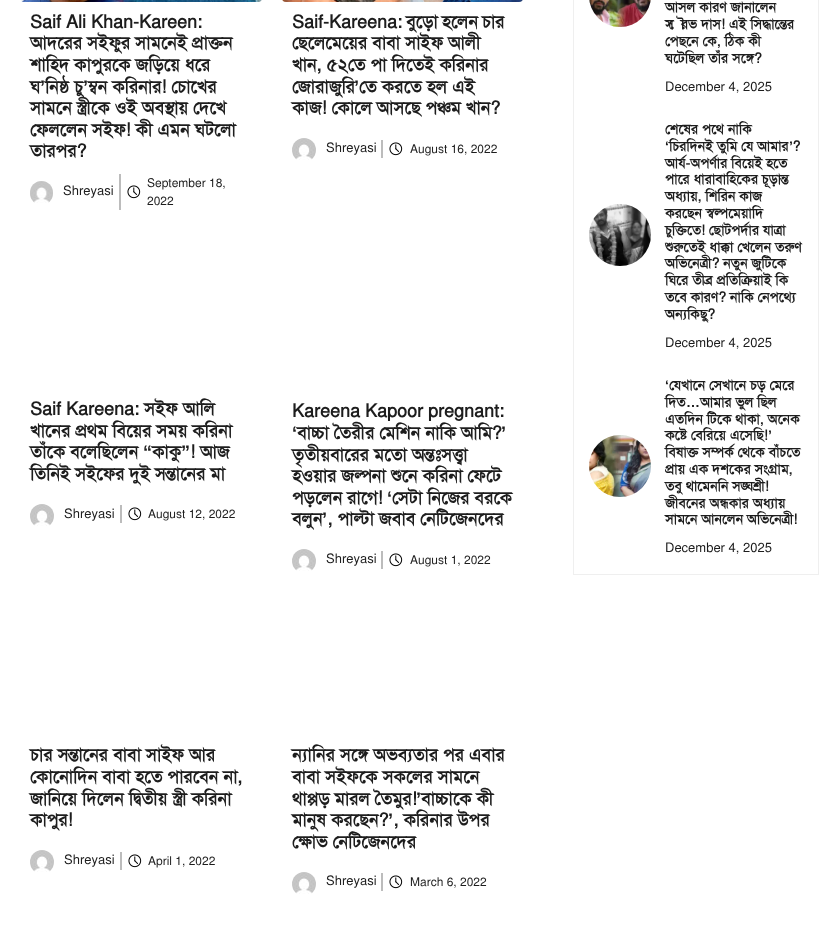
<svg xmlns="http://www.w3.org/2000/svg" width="819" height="931">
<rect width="100%" height="100%" fill="#fff"/>
<image x="21" y="0" width="241" height="2" href="media/1.png"/>
<text x="30" y="28" style="font-family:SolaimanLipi;font-size:18px;font-weight:bold;fill:#1d1d1d">Saif Ali Khan-Kareen:</text>
<text x="30" y="49" style="font-family:SolaimanLipi;font-size:18px;font-weight:bold;fill:#1d1d1d">আদরের সইফুর সামনেই প্রাক্তন</text>
<text x="30" y="71" style="font-family:SolaimanLipi;font-size:18px;font-weight:bold;fill:#1d1d1d">শাহিদ কাপুরকে জড়িয়ে ধরে</text>
<text x="30" y="93" style="font-family:SolaimanLipi;font-size:18px;font-weight:bold;fill:#1d1d1d">ঘ</text>
<text x="40" y="93" style="font-family:Liberation Sans;font-size:18px;font-weight:bold;fill:#1d1d1d">’</text>
<text x="45" y="93" style="font-family:SolaimanLipi;font-size:18px;font-weight:bold;fill:#1d1d1d">নিষ্ঠ চু</text>
<text x="83" y="93" style="font-family:Liberation Sans;font-size:18px;font-weight:bold;fill:#1d1d1d">’</text>
<text x="88" y="93" style="font-family:SolaimanLipi;font-size:18px;font-weight:bold;fill:#1d1d1d">ম্বন করিনার! চোখের</text>
<text x="30" y="114" style="font-family:SolaimanLipi;font-size:18px;font-weight:bold;fill:#1d1d1d">সামনে স্ত্রীকে ওই অবস্থায় দেখে</text>
<text x="30" y="136" style="font-family:SolaimanLipi;font-size:18px;font-weight:bold;fill:#1d1d1d">ফেললেন সইফ! কী এমন ঘটলো</text>
<text x="30" y="157" style="font-family:SolaimanLipi;font-size:18px;font-weight:bold;fill:#1d1d1d">তারপর?</text>
<image x="30" y="181" width="23" height="22" href="media/2.png"/>
<text x="63" y="195" style="font-family:SolaimanLipi;font-size:13px;fill:#1d1d1d">Shreyasi</text>
<rect x="119" y="174" width="2" height="36" fill="#bcbcbc"/>
<image x="127" y="185" width="14" height="14" href="media/3.png"/>
<text x="147" y="187" style="font-family:SolaimanLipi;font-size:12px;fill:#1d1d1d">September 18,</text>
<text x="147" y="205" style="font-family:SolaimanLipi;font-size:12px;fill:#1d1d1d">2022</text>
<image x="282" y="0" width="241" height="2" href="media/4.png"/>
<text x="292" y="28" word-spacing="-1" style="font-family:SolaimanLipi;font-size:18px;font-weight:bold;fill:#1d1d1d">Saif-Kareena: বুড়ো হলেন চার</text>
<text x="292" y="49" style="font-family:SolaimanLipi;font-size:18px;font-weight:bold;fill:#1d1d1d">ছেলেমেয়ের বাবা সাইফ আলী</text>
<text x="292" y="71" style="font-family:SolaimanLipi;font-size:18px;font-weight:bold;fill:#1d1d1d">খান, ৫২তে পা দিতেই করিনার</text>
<text x="292" y="93" style="font-family:SolaimanLipi;font-size:18px;font-weight:bold;fill:#1d1d1d">জোরাজুরি</text>
<text x="354" y="93" style="font-family:Liberation Sans;font-size:18px;font-weight:bold;fill:#1d1d1d">’</text>
<text x="359" y="93" style="font-family:SolaimanLipi;font-size:18px;font-weight:bold;fill:#1d1d1d">তে করতে হল এই</text>
<text x="292" y="114" style="font-family:SolaimanLipi;font-size:18px;font-weight:bold;fill:#1d1d1d">কাজ! কোলে আসছে পঞ্চম খান?</text>
<image x="292" y="138" width="24" height="22" href="media/5.png"/>
<text x="326" y="152" style="font-family:SolaimanLipi;font-size:13px;fill:#1d1d1d">Shreyasi</text>
<rect x="381" y="140" width="2" height="18" fill="#bcbcbc"/>
<image x="389" y="142" width="14" height="14" href="media/3.png"/>
<text x="410" y="153" style="font-family:SolaimanLipi;font-size:12px;fill:#1d1d1d">August 16, 2022</text>
<text x="30" y="415" style="font-family:SolaimanLipi;font-size:18px;font-weight:bold;fill:#1d1d1d">Saif Kareena: সইফ আলি</text>
<text x="30" y="437" style="font-family:SolaimanLipi;font-size:18px;font-weight:bold;fill:#1d1d1d">খানের প্রথম বিয়ের সময় করিনা</text>
<text x="30" y="458" style="font-family:SolaimanLipi;font-size:18px;font-weight:bold;fill:#1d1d1d">তাঁকে বলেছিলেন</text>
<text x="143" y="458" style="font-family:Liberation Sans;font-size:18px;font-weight:bold;fill:#1d1d1d">“</text>
<text x="152" y="458" style="font-family:SolaimanLipi;font-size:18px;font-weight:bold;fill:#1d1d1d">কাকু</text>
<text x="181" y="458" style="font-family:Liberation Sans;font-size:18px;font-weight:bold;fill:#1d1d1d">”</text>
<text x="190" y="458" style="font-family:SolaimanLipi;font-size:18px;font-weight:bold;fill:#1d1d1d">! আজ</text>
<text x="30" y="480" style="font-family:SolaimanLipi;font-size:18px;font-weight:bold;fill:#1d1d1d">তিনিই সইফের দুই সন্তানের মা</text>
<image x="30" y="504" width="24" height="22" href="media/5.png"/>
<text x="64" y="518" style="font-family:SolaimanLipi;font-size:13px;fill:#1d1d1d">Shreyasi</text>
<rect x="120" y="505" width="2" height="18" fill="#bcbcbc"/>
<image x="128" y="507" width="14" height="14" href="media/3.png"/>
<text x="148" y="518" style="font-family:SolaimanLipi;font-size:12px;fill:#1d1d1d">August 12, 2022</text>
<text x="292" y="417" style="font-family:SolaimanLipi;font-size:18px;font-weight:bold;fill:#1d1d1d">Kareena Kapoor pregnant:</text>
<text x="292" y="439" style="font-family:Liberation Sans;font-size:18px;font-weight:bold;fill:#1d1d1d">‘</text>
<text x="297" y="439" style="font-family:SolaimanLipi;font-size:18px;font-weight:bold;fill:#1d1d1d">বাচ্চা তৈরীর মেশিন নাকি আমি?</text>
<text x="501" y="439" style="font-family:Liberation Sans;font-size:18px;font-weight:bold;fill:#1d1d1d">’</text>
<text x="292" y="461" style="font-family:SolaimanLipi;font-size:18px;font-weight:bold;fill:#1d1d1d">তৃতীয়বারের মতো অন্তঃসত্ত্বা</text>
<text x="292" y="482" style="font-family:SolaimanLipi;font-size:18px;font-weight:bold;fill:#1d1d1d">হওয়ার জল্পনা শুনে করিনা ফেটে</text>
<text x="292" y="504" style="font-family:SolaimanLipi;font-size:18px;font-weight:bold;fill:#1d1d1d">পড়লেন রাগে!</text>
<text x="387" y="504" style="font-family:Liberation Sans;font-size:18px;font-weight:bold;fill:#1d1d1d">‘</text>
<text x="392" y="504" style="font-family:SolaimanLipi;font-size:18px;font-weight:bold;fill:#1d1d1d">সেটা নিজের বরকে</text>
<text x="292" y="525" style="font-family:SolaimanLipi;font-size:18px;font-weight:bold;fill:#1d1d1d">বলুন , পাল্টা জবাব নেটিজেনদের</text>
<text x="322" y="525" style="font-family:Liberation Sans;font-size:18px;font-weight:bold;fill:#1d1d1d">’</text>
<image x="292" y="549" width="24" height="22" href="media/5.png"/>
<text x="326" y="563" style="font-family:SolaimanLipi;font-size:13px;fill:#1d1d1d">Shreyasi</text>
<rect x="381" y="551" width="2" height="18" fill="#bcbcbc"/>
<image x="389" y="553" width="14" height="14" href="media/3.png"/>
<text x="410" y="564" style="font-family:SolaimanLipi;font-size:12px;fill:#1d1d1d">August 1, 2022</text>
<text x="30" y="761" style="font-family:SolaimanLipi;font-size:18px;font-weight:bold;fill:#1d1d1d">চার সন্তানের বাবা সাইফ আর</text>
<text x="30" y="783" style="font-family:SolaimanLipi;font-size:18px;font-weight:bold;fill:#1d1d1d">কোনোদিন বাবা হতে পারবেন না,</text>
<text x="30" y="805" style="font-family:SolaimanLipi;font-size:18px;font-weight:bold;fill:#1d1d1d">জানিয়ে দিলেন দ্বিতীয় স্ত্রী করিনা</text>
<text x="30" y="826" style="font-family:SolaimanLipi;font-size:18px;font-weight:bold;fill:#1d1d1d">কাপুর!</text>
<image x="30" y="850" width="24" height="22" href="media/5.png"/>
<text x="64" y="864" style="font-family:SolaimanLipi;font-size:13px;fill:#1d1d1d">Shreyasi</text>
<rect x="120" y="852" width="2" height="18" fill="#bcbcbc"/>
<image x="128" y="854" width="14" height="14" href="media/3.png"/>
<text x="148" y="865" style="font-family:SolaimanLipi;font-size:12px;fill:#1d1d1d">April 1, 2022</text>
<text x="292" y="761" style="font-family:SolaimanLipi;font-size:18px;font-weight:bold;fill:#1d1d1d">ন্যানির সঙ্গে অভব্যতার পর এবার</text>
<text x="292" y="783" style="font-family:SolaimanLipi;font-size:18px;font-weight:bold;fill:#1d1d1d">বাবা সইফকে সকলের সামনে</text>
<text x="292" y="805" style="font-family:SolaimanLipi;font-size:18px;font-weight:bold;fill:#1d1d1d">থাপ্পড় মারল তৈমুর!</text>
<text x="416" y="805" style="font-family:Liberation Sans;font-size:18px;font-weight:bold;fill:#1d1d1d">’</text>
<text x="421" y="805" style="font-family:SolaimanLipi;font-size:18px;font-weight:bold;fill:#1d1d1d">বাচ্চাকে কী</text>
<text x="292" y="826" style="font-family:SolaimanLipi;font-size:18px;font-weight:bold;fill:#1d1d1d">মানুষ করছেন? , করিনার উপর</text>
<text x="388" y="826" style="font-family:Liberation Sans;font-size:18px;font-weight:bold;fill:#1d1d1d">’</text>
<text x="292" y="848" style="font-family:SolaimanLipi;font-size:18px;font-weight:bold;fill:#1d1d1d">ক্ষোভ নেটিজেনদের</text>
<image x="292" y="872" width="24" height="22" href="media/5.png"/>
<text x="326" y="885" style="font-family:SolaimanLipi;font-size:13px;fill:#1d1d1d">Shreyasi</text>
<rect x="381" y="873" width="2" height="18" fill="#bcbcbc"/>
<image x="389" y="875" width="14" height="14" href="media/3.png"/>
<text x="410" y="886" style="font-family:SolaimanLipi;font-size:12px;fill:#1d1d1d">March 6, 2022</text>
<rect x="573.5" y="-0.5" width="245" height="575" fill="none" stroke="#efefef"/>
<image x="589" y="0" width="62" height="27" href="media/6.png"/>
<text x="665" y="12" style="font-family:SolaimanLipi;font-size:14px;font-weight:bold;fill:#1d1d1d">আসল কারণ জানালেন</text>
<text x="665" y="29" style="font-family:SolaimanLipi;font-size:14px;font-weight:bold;fill:#1d1d1d">সৌরভ দাস! এই সিদ্ধান্তের</text>
<text x="665" y="46" style="font-family:SolaimanLipi;font-size:14px;font-weight:bold;fill:#1d1d1d">পেছনে কে, ঠিক কী</text>
<text x="665" y="63" style="font-family:SolaimanLipi;font-size:14px;font-weight:bold;fill:#1d1d1d">ঘটেছিল তাঁর সঙ্গে?</text>
<text x="665" y="91" style="font-family:SolaimanLipi;font-size:13px;fill:#1d1d1d">December 4, 2025</text>
<image x="589" y="204" width="62" height="62" href="media/7.png"/>
<text x="665" y="134" style="font-family:SolaimanLipi;font-size:14px;font-weight:bold;fill:#1d1d1d">শেষের পথে নাকি</text>
<text x="665" y="151" style="font-family:Liberation Sans;font-size:14px;font-weight:bold;fill:#1d1d1d">‘</text>
<text x="669" y="151" style="font-family:SolaimanLipi;font-size:14px;font-weight:bold;fill:#1d1d1d">চিরদিনই তুমি যে আমার ?</text>
<text x="789" y="151" style="font-family:Liberation Sans;font-size:14px;font-weight:bold;fill:#1d1d1d">’</text>
<text x="665" y="168" style="font-family:SolaimanLipi;font-size:14px;font-weight:bold;fill:#1d1d1d">আর্য-অপর্ণার বিয়েই হতে</text>
<text x="665" y="184" style="font-family:SolaimanLipi;font-size:14px;font-weight:bold;fill:#1d1d1d">পারে ধারাবাহিকের চূড়ান্ত</text>
<text x="665" y="201" style="font-family:SolaimanLipi;font-size:14px;font-weight:bold;fill:#1d1d1d">অধ্যায়, শিরিন কাজ</text>
<text x="665" y="218" style="font-family:SolaimanLipi;font-size:14px;font-weight:bold;fill:#1d1d1d">করছেন স্বল্পমেয়াদি</text>
<text x="665" y="235" style="font-family:SolaimanLipi;font-size:14px;font-weight:bold;fill:#1d1d1d">চুক্তিতে! ছোটপর্দার যাত্রা</text>
<text x="665" y="252" style="font-family:SolaimanLipi;font-size:14px;font-weight:bold;fill:#1d1d1d">শুরুতেই ধাক্কা খেলেন তরুণ</text>
<text x="665" y="268" style="font-family:SolaimanLipi;font-size:14px;font-weight:bold;fill:#1d1d1d">অভিনেত্রী? নতুন জুটিকে</text>
<text x="665" y="285" style="font-family:SolaimanLipi;font-size:14px;font-weight:bold;fill:#1d1d1d">ঘিরে তীব্র প্রতিক্রিয়াই কি</text>
<text x="665" y="302" style="font-family:SolaimanLipi;font-size:14px;font-weight:bold;fill:#1d1d1d">তবে কারণ? নাকি নেপথ্যে</text>
<text x="665" y="319" style="font-family:SolaimanLipi;font-size:14px;font-weight:bold;fill:#1d1d1d">অন্যকিছু?</text>
<text x="665" y="347" style="font-family:SolaimanLipi;font-size:13px;fill:#1d1d1d">December 4, 2025</text>
<image x="589" y="435" width="62" height="62" href="media/8.png"/>
<text x="665" y="390" style="font-family:Liberation Sans;font-size:14px;font-weight:bold;fill:#1d1d1d">‘</text>
<text x="669" y="390" style="font-family:SolaimanLipi;font-size:14px;font-weight:bold;fill:#1d1d1d">যেখানে সেখানে চড় মেরে</text>
<text x="665" y="407" style="font-family:SolaimanLipi;font-size:14px;font-weight:bold;fill:#1d1d1d">দিত</text>
<text x="686" y="407" style="font-family:Liberation Sans;font-size:14px;font-weight:bold;fill:#1d1d1d">…</text>
<text x="700" y="407" style="font-family:SolaimanLipi;font-size:14px;font-weight:bold;fill:#1d1d1d">আমার ভুল ছিল</text>
<text x="665" y="424" style="font-family:SolaimanLipi;font-size:14px;font-weight:bold;fill:#1d1d1d">এতদিন টিকে থাকা, অনেক</text>
<text x="665" y="440" style="font-family:SolaimanLipi;font-size:14px;font-weight:bold;fill:#1d1d1d">কষ্টে বেরিয়ে এসেছি!</text>
<text x="768" y="440" style="font-family:Liberation Sans;font-size:14px;font-weight:bold;fill:#1d1d1d">’</text>
<text x="665" y="457" style="font-family:SolaimanLipi;font-size:14px;font-weight:bold;fill:#1d1d1d">বিষাক্ত সম্পর্ক থেকে বাঁচতে</text>
<text x="665" y="474" style="font-family:SolaimanLipi;font-size:14px;font-weight:bold;fill:#1d1d1d">প্রায় এক দশকের সংগ্রাম,</text>
<text x="665" y="491" style="font-family:SolaimanLipi;font-size:14px;font-weight:bold;fill:#1d1d1d">তবু থামেননি সঙ্ঘশ্রী!</text>
<text x="665" y="508" style="font-family:SolaimanLipi;font-size:14px;font-weight:bold;fill:#1d1d1d">জীবনের অন্ধকার অধ্যায়</text>
<text x="665" y="524" style="font-family:SolaimanLipi;font-size:14px;font-weight:bold;fill:#1d1d1d">সামনে আনলেন অভিনেত্রী!</text>
<text x="665" y="552" style="font-family:SolaimanLipi;font-size:13px;fill:#1d1d1d">December 4, 2025</text>
</svg>
